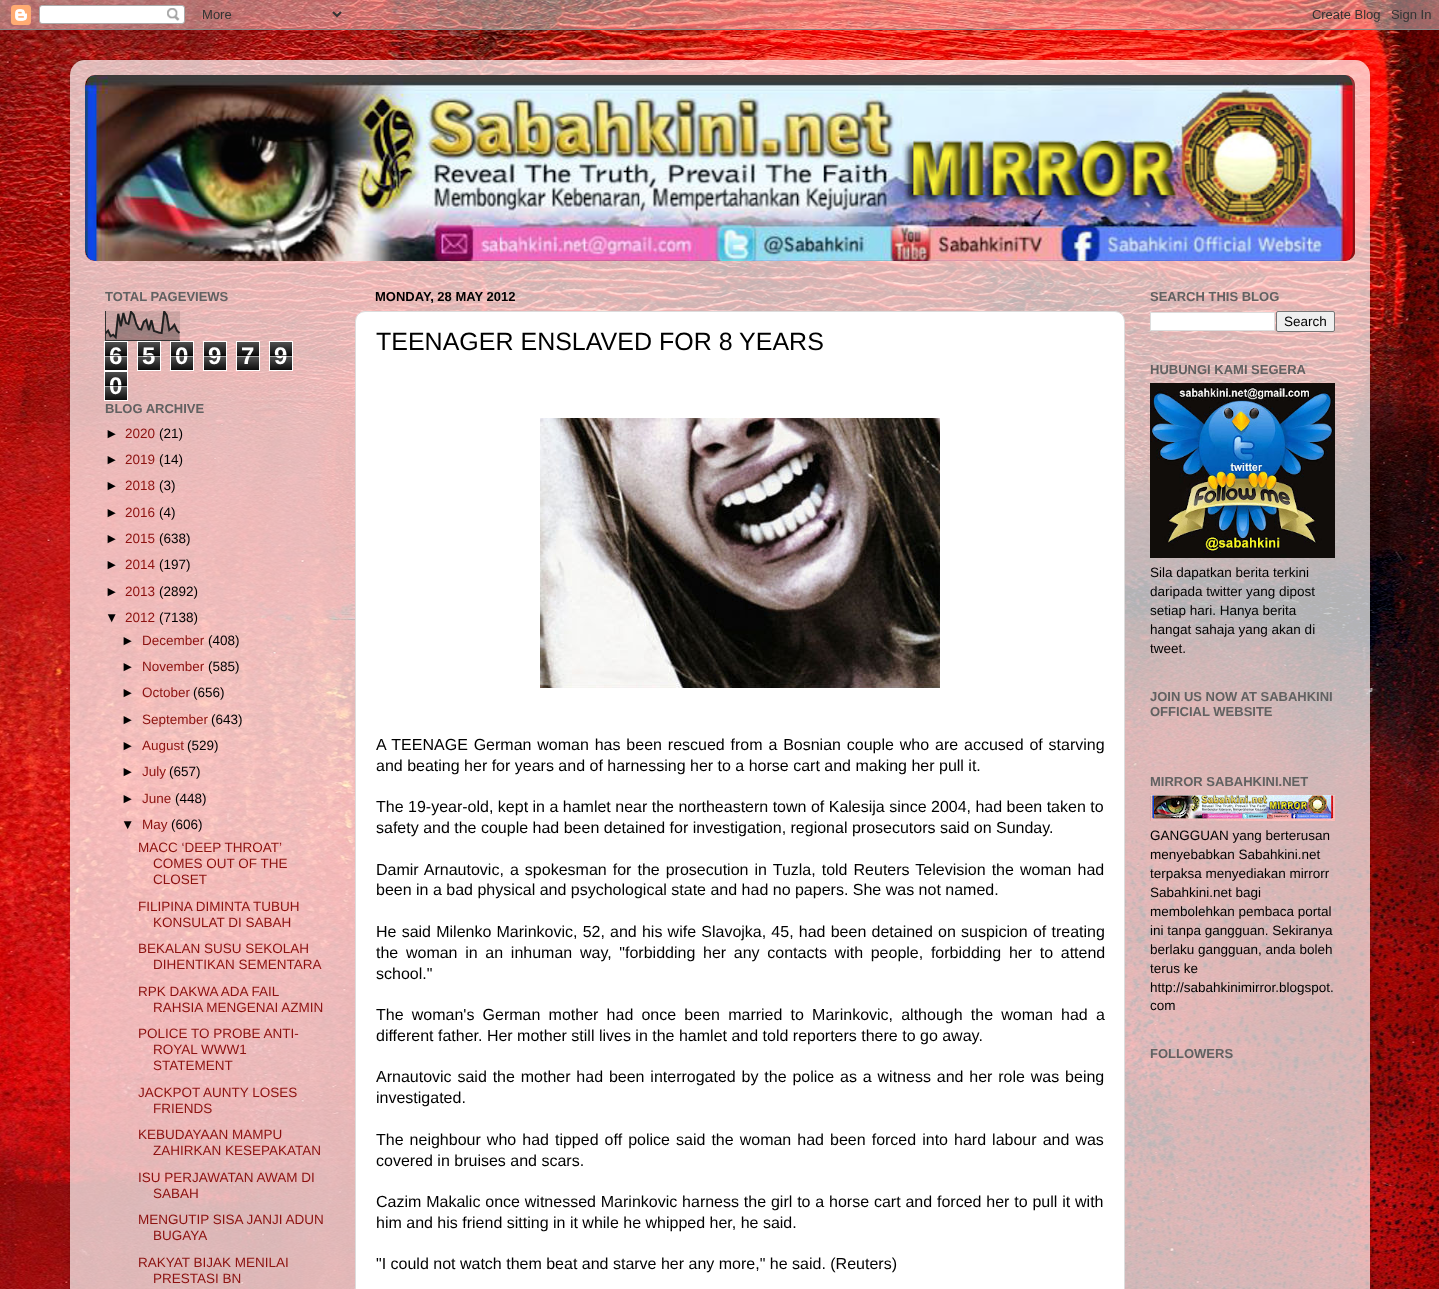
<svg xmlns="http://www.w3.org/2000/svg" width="1439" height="1289">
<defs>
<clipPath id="clip1"><path d="M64 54h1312v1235h-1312zm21 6h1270c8.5 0 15 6.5 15 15v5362c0 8.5-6.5 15-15 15h-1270c-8.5 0-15-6.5-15-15v-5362c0-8.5 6.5-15 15-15z" clip-rule="evenodd"/></clipPath>
</defs>
<rect width="100%" height="100%" fill="#fff"/>
<image x="0" y="0" width="1439" height="1289" href="media/1.png"/>
<image x="0" y="0" width="1439" height="30" href="media/2.png"/>
<g clip-path="url(#clip1)">
<rect x="70" y="60" width="1300" height="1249" rx="15" fill="#00000026" filter="blur(1.5px)"/>
</g>
<image x="70" y="60" width="1300" height="1229" href="media/3.png"/>
<rect x="85" y="75" width="1270" height="186" rx="10" fill="#8c110f"/>
<image x="85" y="75" width="1270" height="10" href="media/4.png"/>
<image x="85" y="75" width="1270" height="186" href="media/5.png"/>
<text x="105" y="301" style="font-family:Liberation Sans;font-size:13px;font-weight:bold;fill:#616161">TOTAL PAGEVIEWS</text>
<image x="105" y="311" width="75" height="30" href="media/6.png"/>
<image x="105" y="342" width="22" height="28" href="media/7.png"/>
<rect x="104.5" y="341.5" width="23" height="29" fill="none" stroke="#fff"/>
<text x="109" y="364" style="font-family:Liberation Sans;font-size:24px;font-weight:bold;fill:#fff">6</text>
<rect x="105" y="355" width="22" height="1" fill="#000000a6"/>
<rect x="105" y="356" width="22" height="1" fill="#ffffffa6"/>
<image x="138" y="342" width="22" height="28" href="media/7.png"/>
<rect x="137.5" y="341.5" width="23" height="29" fill="none" stroke="#fff"/>
<text x="142" y="364" style="font-family:Liberation Sans;font-size:24px;font-weight:bold;fill:#fff">5</text>
<rect x="138" y="355" width="22" height="1" fill="#000000a6"/>
<rect x="138" y="356" width="22" height="1" fill="#ffffffa6"/>
<image x="171" y="342" width="22" height="28" href="media/7.png"/>
<rect x="170.5" y="341.5" width="23" height="29" fill="none" stroke="#fff"/>
<text x="175" y="364" style="font-family:Liberation Sans;font-size:24px;font-weight:bold;fill:#fff">0</text>
<rect x="171" y="355" width="22" height="1" fill="#000000a6"/>
<rect x="171" y="356" width="22" height="1" fill="#ffffffa6"/>
<image x="204" y="342" width="22" height="28" href="media/7.png"/>
<rect x="203.5" y="341.5" width="23" height="29" fill="none" stroke="#fff"/>
<text x="208" y="364" style="font-family:Liberation Sans;font-size:24px;font-weight:bold;fill:#fff">9</text>
<rect x="204" y="355" width="22" height="1" fill="#000000a6"/>
<rect x="204" y="356" width="22" height="1" fill="#ffffffa6"/>
<image x="237" y="342" width="22" height="28" href="media/7.png"/>
<rect x="236.5" y="341.5" width="23" height="29" fill="none" stroke="#fff"/>
<text x="241" y="364" style="font-family:Liberation Sans;font-size:24px;font-weight:bold;fill:#fff">7</text>
<rect x="237" y="355" width="22" height="1" fill="#000000a6"/>
<rect x="237" y="356" width="22" height="1" fill="#ffffffa6"/>
<image x="270" y="342" width="22" height="28" href="media/7.png"/>
<rect x="269.5" y="341.5" width="23" height="29" fill="none" stroke="#fff"/>
<text x="274" y="364" style="font-family:Liberation Sans;font-size:24px;font-weight:bold;fill:#fff">9</text>
<rect x="270" y="355" width="22" height="1" fill="#000000a6"/>
<rect x="270" y="356" width="22" height="1" fill="#ffffffa6"/>
<image x="105" y="372" width="22" height="28" href="media/7.png"/>
<rect x="104.5" y="371.5" width="23" height="29" fill="none" stroke="#fff"/>
<text x="109" y="394" style="font-family:Liberation Sans;font-size:24px;font-weight:bold;fill:#fff">0</text>
<rect x="105" y="385" width="22" height="1" fill="#000000a6"/>
<rect x="105" y="386" width="22" height="1" fill="#ffffffa6"/>
<text x="105" y="413" style="font-family:Liberation Sans;font-size:13px;font-weight:bold;fill:#616161">BLOG ARCHIVE</text>
<text x="105" y="438" style="font-family:Liberation Sans;font-size:13.5px;fill:#000">►</text>
<text x="125" y="438" style="font-family:Liberation Sans;font-size:13.5px;fill:#8c110f">2020</text>
<text x="159" y="438" style="font-family:Liberation Sans;font-size:13.5px;fill:#000">(21)</text>
<text x="105" y="464" style="font-family:Liberation Sans;font-size:13.5px;fill:#000">►</text>
<text x="125" y="464" style="font-family:Liberation Sans;font-size:13.5px;fill:#8c110f">2019</text>
<text x="159" y="464" style="font-family:Liberation Sans;font-size:13.5px;fill:#000">(14)</text>
<text x="105" y="490" style="font-family:Liberation Sans;font-size:13.5px;fill:#000">►</text>
<text x="125" y="490" style="font-family:Liberation Sans;font-size:13.5px;fill:#8c110f">2018</text>
<text x="159" y="490" style="font-family:Liberation Sans;font-size:13.5px;fill:#000">(3)</text>
<text x="105" y="517" style="font-family:Liberation Sans;font-size:13.5px;fill:#000">►</text>
<text x="125" y="517" style="font-family:Liberation Sans;font-size:13.5px;fill:#8c110f">2016</text>
<text x="159" y="517" style="font-family:Liberation Sans;font-size:13.5px;fill:#000">(4)</text>
<text x="105" y="543" style="font-family:Liberation Sans;font-size:13.5px;fill:#000">►</text>
<text x="125" y="543" style="font-family:Liberation Sans;font-size:13.5px;fill:#8c110f">2015</text>
<text x="159" y="543" style="font-family:Liberation Sans;font-size:13.5px;fill:#000">(638)</text>
<text x="105" y="569" style="font-family:Liberation Sans;font-size:13.5px;fill:#000">►</text>
<text x="125" y="569" style="font-family:Liberation Sans;font-size:13.5px;fill:#8c110f">2014</text>
<text x="159" y="569" style="font-family:Liberation Sans;font-size:13.5px;fill:#000">(197)</text>
<text x="105" y="596" style="font-family:Liberation Sans;font-size:13.5px;fill:#000">►</text>
<text x="125" y="596" style="font-family:Liberation Sans;font-size:13.5px;fill:#8c110f">2013</text>
<text x="159" y="596" style="font-family:Liberation Sans;font-size:13.5px;fill:#000">(2892)</text>
<text x="105" y="622" style="font-family:Liberation Sans;font-size:13.5px;fill:#000">▼</text>
<text x="125" y="622" style="font-family:Liberation Sans;font-size:13.5px;fill:#8c110f">2012</text>
<text x="159" y="622" style="font-family:Liberation Sans;font-size:13.5px;fill:#000">(7138)</text>
<text x="121" y="645" style="font-family:Liberation Sans;font-size:13.5px;fill:#000">►</text>
<text x="142" y="645" style="font-family:Liberation Sans;font-size:13.5px;fill:#8c110f">December</text>
<text x="208" y="645" style="font-family:Liberation Sans;font-size:13.5px;fill:#000">(408)</text>
<text x="121" y="671" style="font-family:Liberation Sans;font-size:13.5px;fill:#000">►</text>
<text x="142" y="671" style="font-family:Liberation Sans;font-size:13.5px;fill:#8c110f">November</text>
<text x="208" y="671" style="font-family:Liberation Sans;font-size:13.5px;fill:#000">(585)</text>
<text x="121" y="697" style="font-family:Liberation Sans;font-size:13.5px;fill:#000">►</text>
<text x="142" y="697" style="font-family:Liberation Sans;font-size:13.5px;fill:#8c110f">October</text>
<text x="193" y="697" style="font-family:Liberation Sans;font-size:13.5px;fill:#000">(656)</text>
<text x="121" y="724" style="font-family:Liberation Sans;font-size:13.5px;fill:#000">►</text>
<text x="142" y="724" style="font-family:Liberation Sans;font-size:13.5px;fill:#8c110f">September</text>
<text x="211" y="724" style="font-family:Liberation Sans;font-size:13.5px;fill:#000">(643)</text>
<text x="121" y="750" style="font-family:Liberation Sans;font-size:13.5px;fill:#000">►</text>
<text x="142" y="750" style="font-family:Liberation Sans;font-size:13.5px;fill:#8c110f">August</text>
<text x="187" y="750" style="font-family:Liberation Sans;font-size:13.5px;fill:#000">(529)</text>
<text x="121" y="776" style="font-family:Liberation Sans;font-size:13.5px;fill:#000">►</text>
<text x="142" y="776" style="font-family:Liberation Sans;font-size:13.5px;fill:#8c110f">July</text>
<text x="169" y="776" style="font-family:Liberation Sans;font-size:13.5px;fill:#000">(657)</text>
<text x="121" y="803" style="font-family:Liberation Sans;font-size:13.5px;fill:#000">►</text>
<text x="142" y="803" style="font-family:Liberation Sans;font-size:13.5px;fill:#8c110f">June</text>
<text x="175" y="803" style="font-family:Liberation Sans;font-size:13.5px;fill:#000">(448)</text>
<text x="121" y="829" style="font-family:Liberation Sans;font-size:13.5px;fill:#000">▼</text>
<text x="142" y="829" style="font-family:Liberation Sans;font-size:13.5px;fill:#8c110f">May</text>
<text x="171" y="829" style="font-family:Liberation Sans;font-size:13.5px;fill:#000">(606)</text>
<text x="138" y="852" style="font-family:Liberation Sans;font-size:13.5px;fill:#8c110f">MACC ‘DEEP THROAT’</text>
<text x="153" y="868" style="font-family:Liberation Sans;font-size:13.5px;fill:#8c110f">COMES OUT OF THE</text>
<text x="153" y="884" style="font-family:Liberation Sans;font-size:13.5px;fill:#8c110f">CLOSET</text>
<text x="138" y="911" style="font-family:Liberation Sans;font-size:13.5px;fill:#8c110f">FILIPINA DIMINTA TUBUH</text>
<text x="153" y="927" style="font-family:Liberation Sans;font-size:13.5px;fill:#8c110f">KONSULAT DI SABAH</text>
<text x="138" y="953" style="font-family:Liberation Sans;font-size:13.5px;fill:#8c110f">BEKALAN SUSU SEKOLAH</text>
<text x="153" y="969" style="font-family:Liberation Sans;font-size:13.5px;fill:#8c110f">DIHENTIKAN SEMENTARA</text>
<text x="138" y="996" style="font-family:Liberation Sans;font-size:13.5px;fill:#8c110f">RPK DAKWA ADA FAIL</text>
<text x="153" y="1012" style="font-family:Liberation Sans;font-size:13.5px;fill:#8c110f">RAHSIA MENGENAI AZMIN</text>
<text x="138" y="1038" style="font-family:Liberation Sans;font-size:13.5px;fill:#8c110f">POLICE TO PROBE ANTI-</text>
<text x="153" y="1054" style="font-family:Liberation Sans;font-size:13.5px;fill:#8c110f">ROYAL WWW1</text>
<text x="153" y="1070" style="font-family:Liberation Sans;font-size:13.5px;fill:#8c110f">STATEMENT</text>
<text x="138" y="1097" style="font-family:Liberation Sans;font-size:13.5px;fill:#8c110f">JACKPOT AUNTY LOSES</text>
<text x="153" y="1113" style="font-family:Liberation Sans;font-size:13.5px;fill:#8c110f">FRIENDS</text>
<text x="138" y="1139" style="font-family:Liberation Sans;font-size:13.5px;fill:#8c110f">KEBUDAYAAN MAMPU</text>
<text x="153" y="1155" style="font-family:Liberation Sans;font-size:13.5px;fill:#8c110f">ZAHIRKAN KESEPAKATAN</text>
<text x="138" y="1182" style="font-family:Liberation Sans;font-size:13.5px;fill:#8c110f">ISU PERJAWATAN AWAM DI</text>
<text x="153" y="1198" style="font-family:Liberation Sans;font-size:13.5px;fill:#8c110f">SABAH</text>
<text x="138" y="1224" style="font-family:Liberation Sans;font-size:13.5px;fill:#8c110f">MENGUTIP SISA JANJI ADUN</text>
<text x="153" y="1240" style="font-family:Liberation Sans;font-size:13.5px;fill:#8c110f">BUGAYA</text>
<text x="138" y="1267" style="font-family:Liberation Sans;font-size:13.5px;fill:#8c110f">RAKYAT BIJAK MENILAI</text>
<text x="153" y="1283" style="font-family:Liberation Sans;font-size:13.5px;fill:#8c110f">PRESTASI BN</text>
<text x="375" y="301" style="font-family:Liberation Sans;font-size:13px;font-weight:bold;fill:#000">MONDAY, 28 MAY 2012</text>
<rect x="355.5" y="311.5" width="769" height="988" rx="9.5" fill="#fff" stroke="#dcdcdc"/>
<text x="376" y="350" style="font-family:Liberation Sans;font-size:25px;fill:#000">TEENAGER ENSLAVED FOR 8 YEARS</text>
<image x="540" y="418" width="400" height="270" href="media/8.png"/>
<text x="376" y="750" word-spacing="1.4" style="font-family:Liberation Sans;font-size:16px;fill:#000">A TEENAGE German woman has been rescued from a Bosnian couple who are accused of starving</text>
<text x="376" y="771" style="font-family:Liberation Sans;font-size:16px;fill:#000">and beating her for years and of harnessing her to a horse cart and making her pull it.</text>
<text x="376" y="812" style="font-family:Liberation Sans;font-size:16px;fill:#000">The 19-year-old, kept in a hamlet near the northeastern town of Kalesija since 2004, had been taken to</text>
<text x="376" y="833" style="font-family:Liberation Sans;font-size:16px;fill:#000">safety and the couple had been detained for investigation, regional prosecutors said on Sunday.</text>
<text x="376" y="875" word-spacing="1.6" style="font-family:Liberation Sans;font-size:16px;fill:#000">Damir Arnautovic, a spokesman for the prosecution in Tuzla, told Reuters Television the woman had</text>
<text x="376" y="895" style="font-family:Liberation Sans;font-size:16px;fill:#000">been in a bad physical and psychological state and had no papers. She was not named.</text>
<text x="376" y="937" word-spacing="0.75" style="font-family:Liberation Sans;font-size:16px;fill:#000">He said Milenko Marinkovic, 52, and his wife Slavojka, 45, had been detained on suspicion of treating</text>
<text x="376" y="958" word-spacing="3.25" style="font-family:Liberation Sans;font-size:16px;fill:#000">the woman in an inhuman way, "forbidding her any contacts with people, forbidding her to attend</text>
<text x="376" y="979" style="font-family:Liberation Sans;font-size:16px;fill:#000">school."</text>
<text x="376" y="1020" word-spacing="3.75" style="font-family:Liberation Sans;font-size:16px;fill:#000">The woman's German mother had once been married to Marinkovic, although the woman had a</text>
<text x="376" y="1041" style="font-family:Liberation Sans;font-size:16px;fill:#000">different father. Her mother still lives in the hamlet and told reporters there to go away.</text>
<text x="376" y="1082" word-spacing="1.4" style="font-family:Liberation Sans;font-size:16px;fill:#000">Arnautovic said the mother had been interrogated by the police as a witness and her role was being</text>
<text x="376" y="1103" style="font-family:Liberation Sans;font-size:16px;fill:#000">investigated.</text>
<text x="376" y="1145" word-spacing="1.6" style="font-family:Liberation Sans;font-size:16px;fill:#000">The neighbour who had tipped off police said the woman had been forced into hard labour and was</text>
<text x="376" y="1166" style="font-family:Liberation Sans;font-size:16px;fill:#000">covered in bruises and scars.</text>
<text x="376" y="1207" word-spacing="0.4" style="font-family:Liberation Sans;font-size:16px;fill:#000">Cazim Makalic once witnessed Marinkovic harness the girl to a horse cart and forced her to pull it with</text>
<text x="376" y="1228" style="font-family:Liberation Sans;font-size:16px;fill:#000">him and his friend sitting in it while he whipped her, he said.</text>
<text x="376" y="1269" style="font-family:Liberation Sans;font-size:16px;fill:#000">"I could not watch them beat and starve her any more," he said. (Reuters)</text>
<text x="1150" y="301" style="font-family:Liberation Sans;font-size:13px;font-weight:bold;fill:#616161">SEARCH THIS BLOG</text>
<rect x="1150.5" y="312.5" width="124" height="18" fill="#fff" stroke="#ddd"/>
<rect x="1276.5" y="311.5" width="58" height="20" rx="1.5" fill="#efefef" stroke="#767676"/>
<text x="1284" y="326" style="font-family:Liberation Sans;font-size:13.5px;fill:#000">Search</text>
<text x="1150" y="374" style="font-family:Liberation Sans;font-size:13px;font-weight:bold;fill:#616161">HUBUNGI KAMI SEGERA</text>
<image x="1150" y="383" width="185" height="175" href="media/9.png"/>
<text x="1150" y="577" style="font-family:Liberation Sans;font-size:13.5px;fill:#000">Sila dapatkan berita terkini</text>
<text x="1150" y="596" style="font-family:Liberation Sans;font-size:13.5px;fill:#000">daripada twitter yang dipost</text>
<text x="1150" y="615" style="font-family:Liberation Sans;font-size:13.5px;fill:#000">setiap hari. Hanya berita</text>
<text x="1150" y="634" style="font-family:Liberation Sans;font-size:13.5px;fill:#000">hangat sahaja yang akan di</text>
<text x="1150" y="653" style="font-family:Liberation Sans;font-size:13.5px;fill:#000">tweet.</text>
<text x="1150" y="701" style="font-family:Liberation Sans;font-size:13px;font-weight:bold;fill:#616161">JOIN US NOW AT SABAHKINI</text>
<text x="1150" y="716" style="font-family:Liberation Sans;font-size:13px;font-weight:bold;fill:#616161">OFFICIAL WEBSITE</text>
<text x="1150" y="786" style="font-family:Liberation Sans;font-size:13px;font-weight:bold;fill:#616161">MIRROR SABAHKINI.NET</text>
<image x="1150" y="795" width="185" height="26" href="media/10.png"/>
<text x="1150" y="840" style="font-family:Liberation Sans;font-size:13.5px;fill:#000">GANGGUAN yang berterusan</text>
<text x="1150" y="859" style="font-family:Liberation Sans;font-size:13.5px;fill:#000">menyebabkan Sabahkini.net</text>
<text x="1150" y="878" style="font-family:Liberation Sans;font-size:13.5px;fill:#000">terpaksa menyediakan mirrorr</text>
<text x="1150" y="897" style="font-family:Liberation Sans;font-size:13.5px;fill:#000">Sabahkini.net bagi</text>
<text x="1150" y="916" style="font-family:Liberation Sans;font-size:13.5px;fill:#000">membolehkan pembaca portal</text>
<text x="1150" y="935" style="font-family:Liberation Sans;font-size:13.5px;fill:#000">ini tanpa gangguan. Sekiranya</text>
<text x="1150" y="954" style="font-family:Liberation Sans;font-size:13.5px;fill:#000">berlaku gangguan, anda boleh</text>
<text x="1150" y="973" style="font-family:Liberation Sans;font-size:13.5px;fill:#000">terus ke</text>
<text x="1150" y="992" style="font-family:Liberation Sans;font-size:13.5px;fill:#000">http://sabahkinimirror.blogspot.</text>
<text x="1150" y="1010" style="font-family:Liberation Sans;font-size:13.5px;fill:#000">com</text>
<text x="1150" y="1058" style="font-family:Liberation Sans;font-size:13px;font-weight:bold;fill:#616161">FOLLOWERS</text>
</svg>
